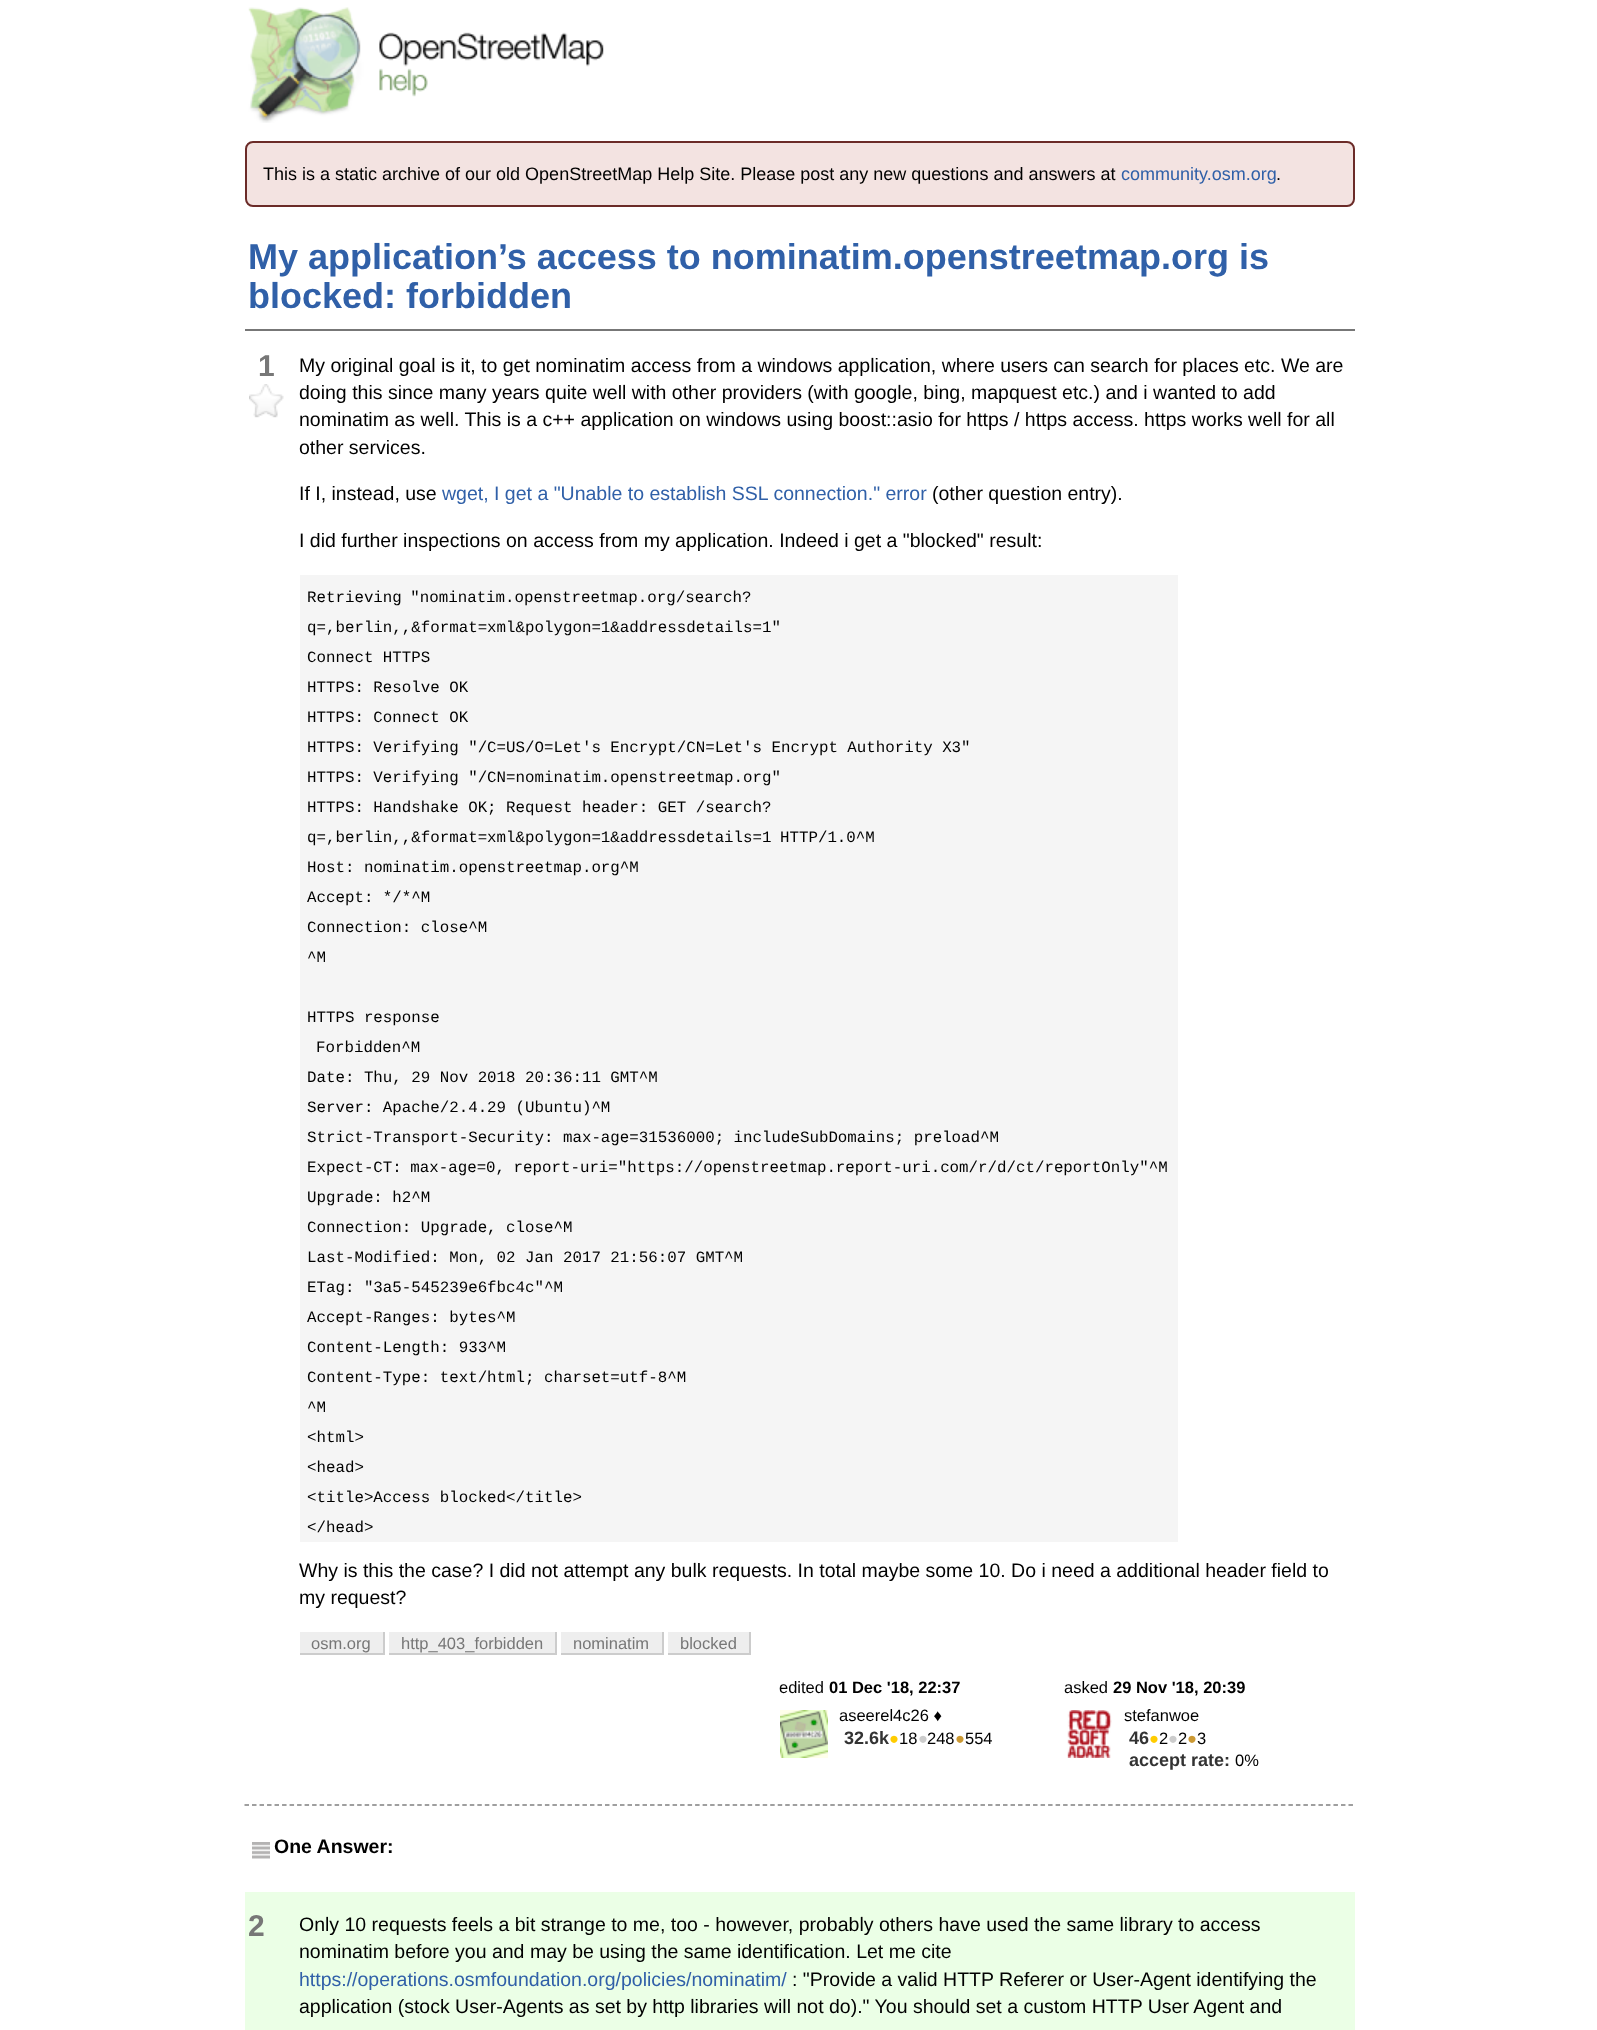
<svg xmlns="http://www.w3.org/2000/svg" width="1597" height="2030">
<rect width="100%" height="100%" fill="#fff"/>
<image x="248" y="7" width="356" height="116" href="media/1.png"/>
<rect x="246" y="142" width="1108" height="64" rx="7" fill="#f3e3e1" stroke="#6b2b28" stroke-width="2"/>
<text x="263" y="180" style="font-family:Liberation Sans;font-size:18px;fill:#000">This is a static archive of our old OpenStreetMap Help Site. Please post any new questions and answers at</text>
<text x="1121" y="180" style="font-family:Liberation Sans;font-size:18px;fill:#3060a8">community.osm.org</text>
<text x="1276" y="180" style="font-family:Liberation Sans;font-size:18px;fill:#000">.</text>
<rect x="245" y="329" width="1110" height="2" fill="#777"/>
<text x="248" y="269" style="font-family:Liberation Sans;font-size:36px;font-weight:bold;fill:#3060a8">My application’s access to nominatim.openstreetmap.org is</text>
<text x="248" y="308" style="font-family:Liberation Sans;font-size:36px;font-weight:bold;fill:#3060a8">blocked: forbidden</text>
<text x="258" y="376" style="font-family:Liberation Sans;font-size:30px;font-weight:bold;fill:#777">1</text>
<image x="249" y="384" width="35" height="34" href="media/2.png"/>
<text x="299" y="372" style="font-family:Liberation Sans;font-size:19.5px;fill:#000">My original goal is it, to get nominatim access from a windows application, where users can search for places etc. We are</text>
<text x="299" y="399" style="font-family:Liberation Sans;font-size:19.5px;fill:#000">doing this since many years quite well with other providers (with google, bing, mapquest etc.) and i wanted to add</text>
<text x="299" y="426" style="font-family:Liberation Sans;font-size:19.5px;fill:#000">nominatim as well. This is a c++ application on windows using boost::asio for https / https access. https works well for all</text>
<text x="299" y="454" style="font-family:Liberation Sans;font-size:19.5px;fill:#000">other services.</text>
<text x="299" y="500" style="font-family:Liberation Sans;font-size:19.5px;fill:#000">If I, instead, use</text>
<text x="442" y="500" style="font-family:Liberation Sans;font-size:19.5px;fill:#3060a8">wget, I get a "Unable to establish SSL connection." error</text>
<text x="932" y="500" style="font-family:Liberation Sans;font-size:19.5px;fill:#000">(other question entry).</text>
<text x="299" y="547" style="font-family:Liberation Sans;font-size:19.5px;fill:#000">I did further inspections on access from my application. Indeed i get a "blocked" result:</text>
<rect x="300" y="575" width="878" height="967" fill="#f5f5f5"/>
<text x="307" y="602" word-spacing="-1" style="font-family:Liberation Mono;font-size:15.8px;fill:#000">Retrieving "nominatim.openstreetmap.org/search?</text>
<text x="307" y="632" style="font-family:Liberation Mono;font-size:15.8px;fill:#000">q=,berlin,,&amp;format=xml&amp;polygon=1&amp;addressdetails=1"</text>
<text x="307" y="662" style="font-family:Liberation Mono;font-size:15.8px;fill:#000">Connect HTTPS</text>
<text x="307" y="692" style="font-family:Liberation Mono;font-size:15.8px;fill:#000">HTTPS: Resolve OK</text>
<text x="307" y="722" style="font-family:Liberation Mono;font-size:15.8px;fill:#000">HTTPS: Connect OK</text>
<text x="307" y="752" style="font-family:Liberation Mono;font-size:15.8px;fill:#000">HTTPS: Verifying "/C=US/O=Let's Encrypt/CN=Let's Encrypt Authority X3"</text>
<text x="307" y="782" style="font-family:Liberation Mono;font-size:15.8px;fill:#000">HTTPS: Verifying "/CN=nominatim.openstreetmap.org"</text>
<text x="307" y="812" style="font-family:Liberation Mono;font-size:15.8px;fill:#000">HTTPS: Handshake OK; Request header: GET /search?</text>
<text x="307" y="842" word-spacing="-1" style="font-family:Liberation Mono;font-size:15.8px;fill:#000">q=,berlin,,&amp;format=xml&amp;polygon=1&amp;addressdetails=1 HTTP/1.0^M</text>
<text x="307" y="872" style="font-family:Liberation Mono;font-size:15.8px;fill:#000">Host: nominatim.openstreetmap.org^M</text>
<text x="307" y="902" style="font-family:Liberation Mono;font-size:15.8px;fill:#000">Accept: */*^M</text>
<text x="307" y="932" style="font-family:Liberation Mono;font-size:15.8px;fill:#000">Connection: close^M</text>
<text x="307" y="962" style="font-family:Liberation Mono;font-size:15.8px;fill:#000">^M</text>
<text x="307" y="1022" style="font-family:Liberation Mono;font-size:15.8px;fill:#000">HTTPS response</text>
<text x="316" y="1052" style="font-family:Liberation Mono;font-size:15.8px;fill:#000">Forbidden^M</text>
<text x="307" y="1082" style="font-family:Liberation Mono;font-size:15.8px;fill:#000">Date: Thu, 29 Nov 2018 20:36:11 GMT^M</text>
<text x="307" y="1112" style="font-family:Liberation Mono;font-size:15.8px;fill:#000">Server: Apache/2.4.29 (Ubuntu)^M</text>
<text x="307" y="1142" style="font-family:Liberation Mono;font-size:15.8px;fill:#000">Strict-Transport-Security: max-age=31536000; includeSubDomains; preload^M</text>
<text x="307" y="1172" word-spacing="-1" style="font-family:Liberation Mono;font-size:15.8px;fill:#000">Expect-CT: max-age=0, report-uri="https://openstreetmap.report-uri.com/r/d/ct/reportOnly"^M</text>
<text x="307" y="1202" style="font-family:Liberation Mono;font-size:15.8px;fill:#000">Upgrade: h2^M</text>
<text x="307" y="1232" style="font-family:Liberation Mono;font-size:15.8px;fill:#000">Connection: Upgrade, close^M</text>
<text x="307" y="1262" style="font-family:Liberation Mono;font-size:15.8px;fill:#000">Last-Modified: Mon, 02 Jan 2017 21:56:07 GMT^M</text>
<text x="307" y="1292" style="font-family:Liberation Mono;font-size:15.8px;fill:#000">ETag: "3a5-545239e6fbc4c"^M</text>
<text x="307" y="1322" style="font-family:Liberation Mono;font-size:15.8px;fill:#000">Accept-Ranges: bytes^M</text>
<text x="307" y="1352" style="font-family:Liberation Mono;font-size:15.8px;fill:#000">Content-Length: 933^M</text>
<text x="307" y="1382" style="font-family:Liberation Mono;font-size:15.8px;fill:#000">Content-Type: text/html; charset=utf-8^M</text>
<text x="307" y="1412" style="font-family:Liberation Mono;font-size:15.8px;fill:#000">^M</text>
<text x="307" y="1442" style="font-family:Liberation Mono;font-size:15.8px;fill:#000">&lt;html&gt;</text>
<text x="307" y="1472" style="font-family:Liberation Mono;font-size:15.8px;fill:#000">&lt;head&gt;</text>
<text x="307" y="1502" style="font-family:Liberation Mono;font-size:15.8px;fill:#000">&lt;title&gt;Access blocked&lt;/title&gt;</text>
<text x="307" y="1532" style="font-family:Liberation Mono;font-size:15.8px;fill:#000">&lt;/head&gt;</text>
<text x="299" y="1577" style="font-family:Liberation Sans;font-size:19.5px;fill:#000">Why is this the case? I did not attempt any bulk requests. In total maybe some 10. Do i need a additional header field to</text>
<text x="299" y="1604" style="font-family:Liberation Sans;font-size:19.5px;fill:#000">my request?</text>
<rect x="300" y="1632" width="83" height="21" fill="#eee"/>
<text x="311" y="1649" style="font-family:Liberation Sans;font-size:16.5px;fill:#777">osm.org</text>
<rect x="383" y="1632" width="2" height="23" fill="#ccc"/>
<rect x="300" y="1653" width="84" height="2" fill="#ccc"/>
<rect x="389" y="1632" width="166" height="21" fill="#eee"/>
<text x="401" y="1649" style="font-family:Liberation Sans;font-size:16.5px;fill:#777">http_403_forbidden</text>
<rect x="555" y="1632" width="2" height="23" fill="#ccc"/>
<rect x="389" y="1653" width="168" height="2" fill="#ccc"/>
<rect x="561" y="1632" width="101" height="21" fill="#eee"/>
<text x="573" y="1649" style="font-family:Liberation Sans;font-size:16.5px;fill:#777">nominatim</text>
<rect x="662" y="1632" width="2" height="23" fill="#ccc"/>
<rect x="561" y="1653" width="102" height="2" fill="#ccc"/>
<rect x="668" y="1632" width="81" height="21" fill="#eee"/>
<text x="680" y="1649" style="font-family:Liberation Sans;font-size:16.5px;fill:#777">blocked</text>
<rect x="749" y="1632" width="2" height="23" fill="#ccc"/>
<rect x="668" y="1653" width="82" height="2" fill="#ccc"/>
<text x="779" y="1693" style="font-family:Liberation Sans;font-size:16.5px;fill:#000">edited</text>
<text x="829" y="1693" style="font-family:Liberation Sans;font-size:16.5px;font-weight:bold;fill:#000">01 Dec '18, 22:37</text>
<image x="780" y="1710" width="48" height="48" href="media/3.png"/>
<text x="839" y="1721" style="font-family:Liberation Sans;font-size:16.5px;fill:#000">aseerel4c26 ♦</text>
<text x="844" y="1744" style="font-family:Liberation Sans;font-size:18px;font-weight:bold;fill:#333">32.6k</text>
<text x="889" y="1744" style="font-family:Liberation Sans;font-size:16.5px;fill:#fc0">●</text>
<text x="899" y="1744" style="font-family:Liberation Sans;font-size:16.5px;fill:#000">18</text>
<text x="918" y="1744" style="font-family:Liberation Sans;font-size:16.5px;fill:#ccc">●</text>
<text x="927" y="1744" style="font-family:Liberation Sans;font-size:16.5px;fill:#000">248</text>
<text x="955" y="1744" style="font-family:Liberation Sans;font-size:16.5px;fill:#c93">●</text>
<text x="965" y="1744" style="font-family:Liberation Sans;font-size:16.5px;fill:#000">554</text>
<text x="1064" y="1693" style="font-family:Liberation Sans;font-size:16.5px;fill:#000">asked</text>
<text x="1113" y="1693" style="font-family:Liberation Sans;font-size:16.5px;font-weight:bold;fill:#000">29 Nov '18, 20:39</text>
<image x="1067" y="1710" width="45" height="48" href="media/4.png"/>
<text x="1124" y="1721" style="font-family:Liberation Sans;font-size:16.5px;fill:#000">stefanwoe</text>
<text x="1129" y="1744" style="font-family:Liberation Sans;font-size:18px;font-weight:bold;fill:#333">46</text>
<text x="1149" y="1744" style="font-family:Liberation Sans;font-size:16.5px;fill:#fc0">●</text>
<text x="1159" y="1744" style="font-family:Liberation Sans;font-size:16.5px;fill:#000">2</text>
<text x="1168" y="1744" style="font-family:Liberation Sans;font-size:16.5px;fill:#ccc">●</text>
<text x="1178" y="1744" style="font-family:Liberation Sans;font-size:16.5px;fill:#000">2</text>
<text x="1187" y="1744" style="font-family:Liberation Sans;font-size:16.5px;fill:#c93">●</text>
<text x="1197" y="1744" style="font-family:Liberation Sans;font-size:16.5px;fill:#000">3</text>
<text x="1129" y="1766" style="font-family:Liberation Sans;font-size:18px;font-weight:bold;fill:#333">accept rate:</text>
<text x="1235" y="1766" style="font-family:Liberation Sans;font-size:16.5px;fill:#000">0%</text>
<path d="M244.5 1805h1110" fill="none" stroke="#808080" stroke-width="1.5" stroke-dasharray="4.5 3.01"/>
<image x="252" y="1842" width="18" height="17" href="media/5.png"/>
<text x="274" y="1853" style="font-family:Liberation Sans;font-size:19.5px;font-weight:bold;fill:#000">One Answer:</text>
<rect x="245" y="1892" width="1110" height="138" fill="#ebffe6"/>
<text x="248" y="1936" style="font-family:Liberation Sans;font-size:30px;font-weight:bold;fill:#777">2</text>
<text x="299" y="1931" style="font-family:Liberation Sans;font-size:19.5px;fill:#000">Only 10 requests feels a bit strange to me, too - however, probably others have used the same library to access</text>
<text x="299" y="1958" style="font-family:Liberation Sans;font-size:19.5px;fill:#000">nominatim before you and may be using the same identification. Let me cite</text>
<text x="299" y="1986" style="font-family:Liberation Sans;font-size:19.5px;fill:#3060a8">https://operations.osmfoundation.org/policies/nominatim/</text>
<text x="792" y="1986" style="font-family:Liberation Sans;font-size:19.5px;fill:#000">: "Provide a valid HTTP Referer or User-Agent identifying the</text>
<text x="299" y="2013" style="font-family:Liberation Sans;font-size:19.5px;fill:#000">application (stock User-Agents as set by http libraries will not do)." You should set a custom HTTP User Agent and</text>
</svg>
